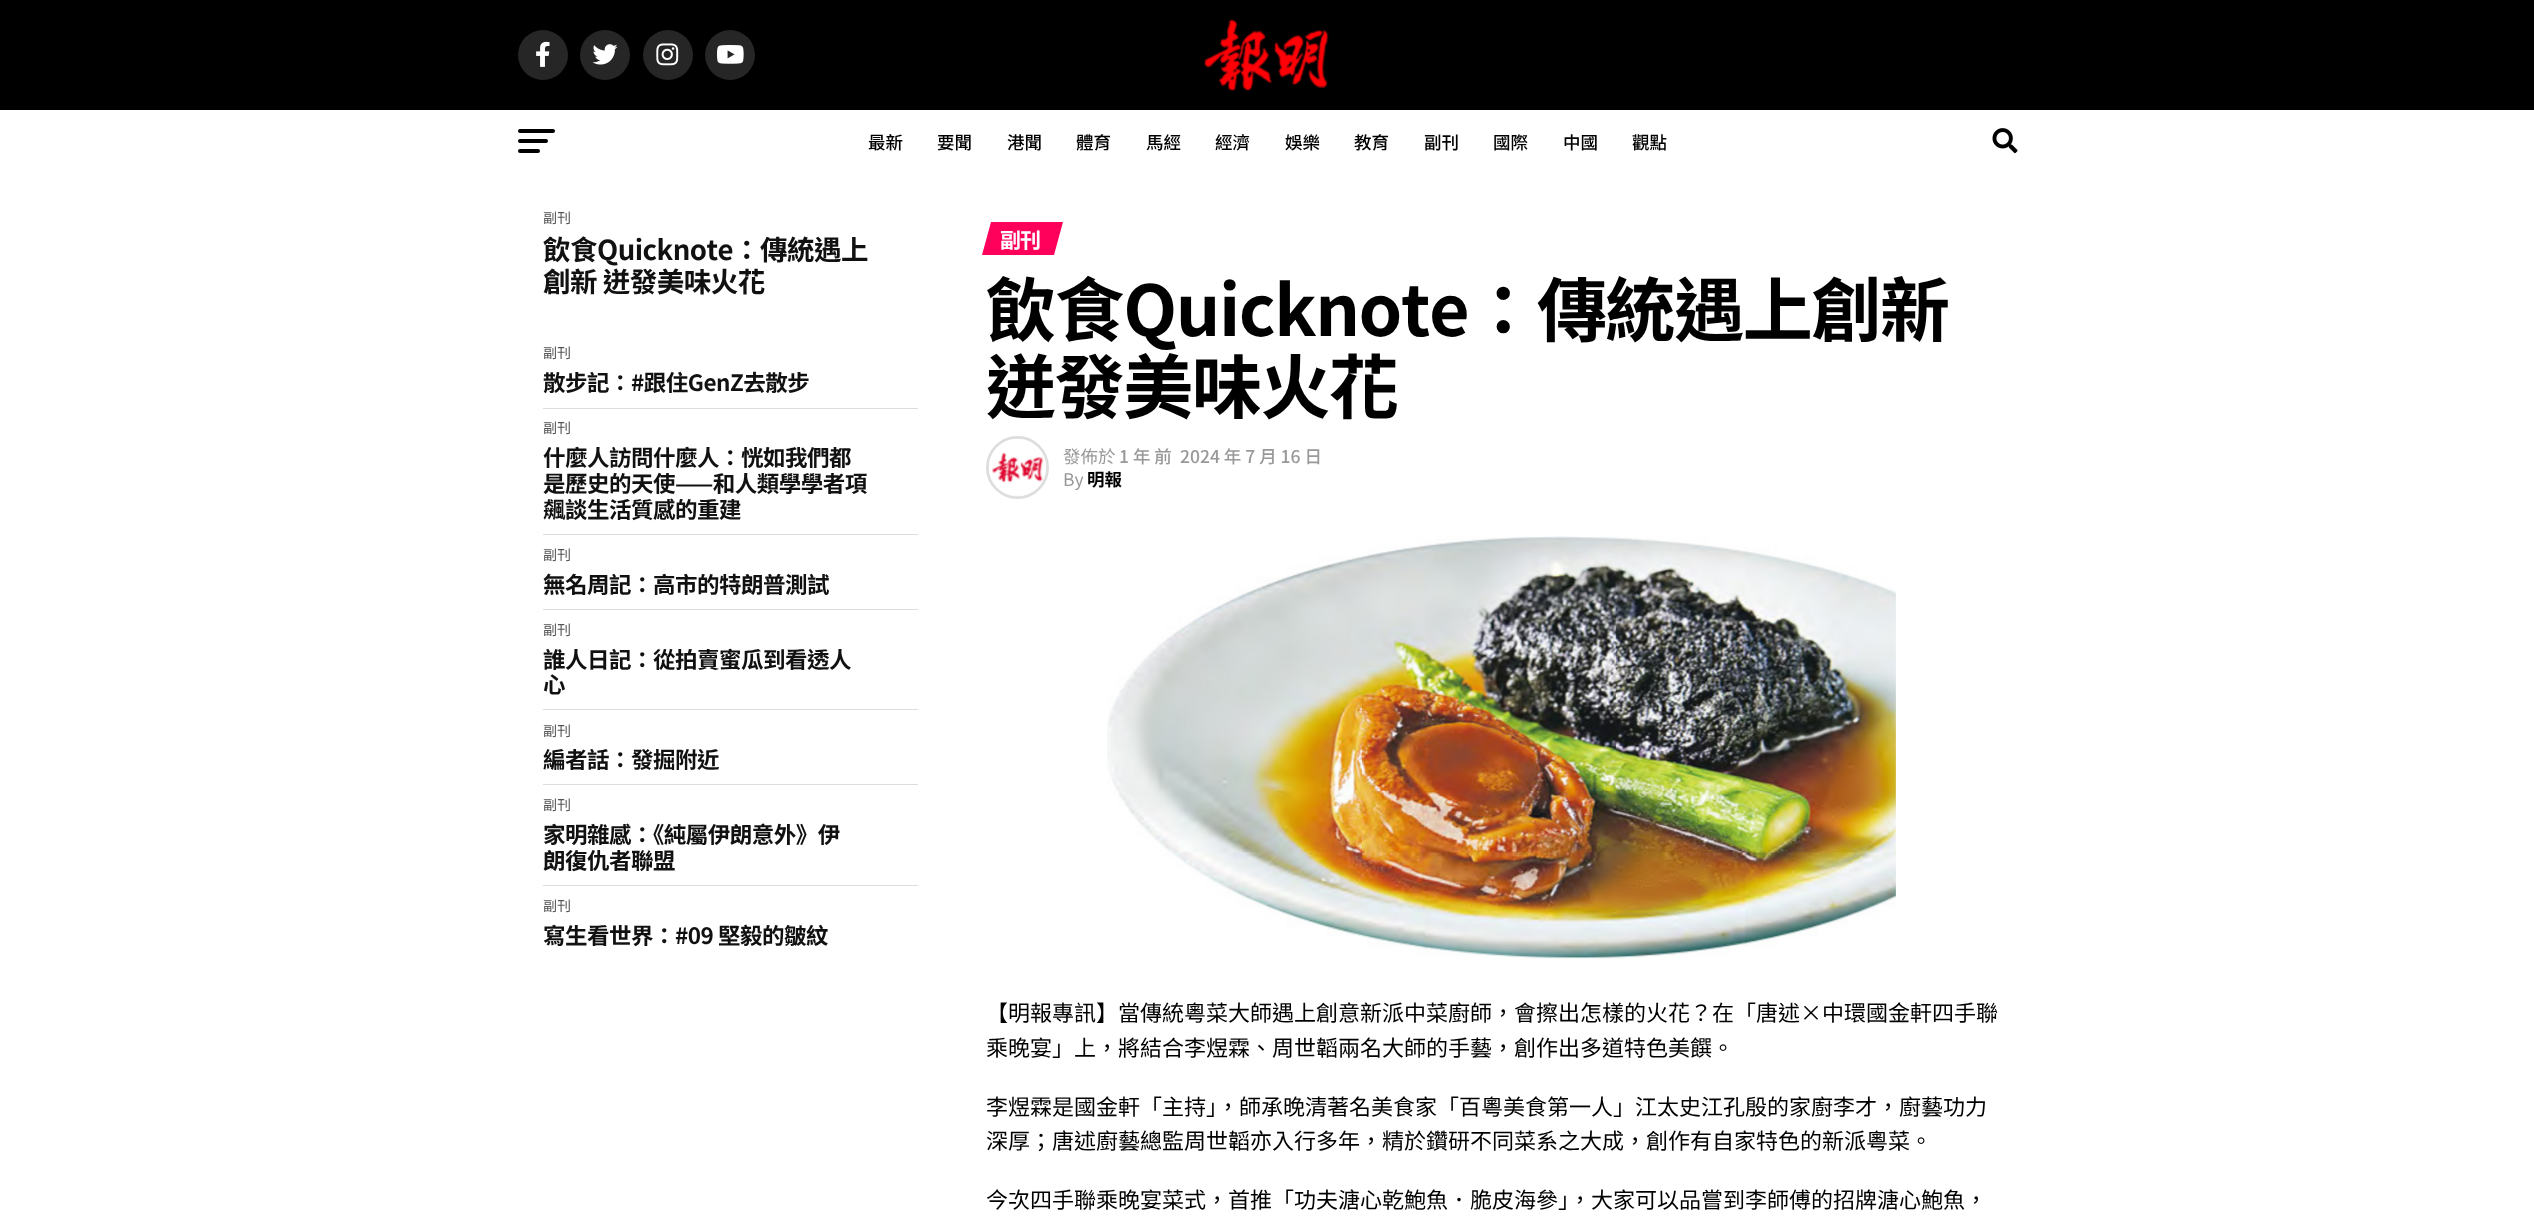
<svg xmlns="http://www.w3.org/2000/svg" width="2534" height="1228">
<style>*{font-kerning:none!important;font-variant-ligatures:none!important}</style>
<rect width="100%" height="100%" fill="#fff"/>
<rect width="2534" height="110" fill="#000"/>
<circle cx="543" cy="55" r="25" fill="#262626"/>
<image x="536" y="41" width="14" height="26" href="media/1.png"/>
<circle cx="605" cy="55" r="25" fill="#262626"/>
<image x="592" y="44" width="26" height="21" href="media/2.png"/>
<circle cx="668" cy="55" r="25" fill="#262626"/>
<image x="656" y="43" width="23" height="23" href="media/3.png"/>
<circle cx="730" cy="55" r="25" fill="#262626"/>
<image x="717" y="45" width="27" height="19" href="media/4.png"/>
<image x="1204" y="19" width="125" height="72" href="media/5.png"/>
<rect x="518" y="129" width="37" height="4" rx="2" fill="#000"/>
<rect x="518" y="139" width="30" height="4" rx="2" fill="#000"/>
<rect x="518" y="149" width="22" height="4" rx="2" fill="#000"/>
<text x="868" y="149" style="font-family:Noto Sans TC;font-size:17.5px;font-weight:500;fill:#000">最新</text>
<text x="937" y="149" style="font-family:Noto Sans TC;font-size:17.5px;font-weight:500;fill:#000">要聞</text>
<text x="1007" y="149" style="font-family:Noto Sans TC;font-size:17.5px;font-weight:500;fill:#000">港聞</text>
<text x="1076" y="149" style="font-family:Noto Sans TC;font-size:17.5px;font-weight:500;fill:#000">體育</text>
<text x="1146" y="149" style="font-family:Noto Sans TC;font-size:17.5px;font-weight:500;fill:#000">馬經</text>
<text x="1215" y="149" style="font-family:Noto Sans TC;font-size:17.5px;font-weight:500;fill:#000">經濟</text>
<text x="1285" y="149" style="font-family:Noto Sans TC;font-size:17.5px;font-weight:500;fill:#000">娛樂</text>
<text x="1354" y="149" style="font-family:Noto Sans TC;font-size:17.5px;font-weight:500;fill:#000">教育</text>
<text x="1424" y="149" style="font-family:Noto Sans TC;font-size:17.5px;font-weight:500;fill:#000">副刊</text>
<text x="1493" y="149" style="font-family:Noto Sans TC;font-size:17.5px;font-weight:500;fill:#000">國際</text>
<text x="1563" y="149" style="font-family:Noto Sans TC;font-size:17.5px;font-weight:500;fill:#000">中國</text>
<text x="1632" y="149" style="font-family:Noto Sans TC;font-size:17.5px;font-weight:500;fill:#000">觀點</text>
<image x="1992" y="128" width="26" height="26" href="media/6.png"/>
<text x="543" y="223" style="font-family:Noto Sans TC;font-size:14px;fill:#555">副刊</text>
<text x="543" y="260" style="font-family:Noto Sans TC;font-size:27.5px;font-weight:bold;letter-spacing:-0.5px;fill:#111">飲食Quicknote：傳統遇上</text>
<text x="543" y="292" style="font-family:Noto Sans TC;font-size:27.5px;font-weight:bold;letter-spacing:-0.5px;fill:#111">創新 迸發美味火花</text>
<rect x="543" y="408" width="375" height="1" fill="#ddd"/>
<text x="543" y="358" style="font-family:Noto Sans TC;font-size:14px;fill:#555">副刊</text>
<text x="543" y="391" style="font-family:Noto Sans TC;font-size:22.5px;font-weight:bold;letter-spacing:-0.5px;fill:#111">散步記：#跟住GenZ去散步</text>
<rect x="543" y="534" width="375" height="1" fill="#ddd"/>
<text x="543" y="433" style="font-family:Noto Sans TC;font-size:14px;fill:#555">副刊</text>
<text x="543" y="466" style="font-family:Noto Sans TC;font-size:22.5px;font-weight:bold;letter-spacing:-0.5px;fill:#111">什麼人訪問什麼人：恍如我們都</text>
<text x="543" y="492" style="font-family:Noto Sans TC;font-size:22.5px;font-weight:bold;letter-spacing:-0.5px;fill:#111">是歷史的天使——和人類學學者項</text>
<text x="543" y="518" style="font-family:Noto Sans TC;font-size:22.5px;font-weight:bold;letter-spacing:-0.5px;fill:#111">飆談生活質感的重建</text>
<rect x="543" y="609" width="375" height="1" fill="#ddd"/>
<text x="543" y="560" style="font-family:Noto Sans TC;font-size:14px;fill:#555">副刊</text>
<text x="543" y="593" style="font-family:Noto Sans TC;font-size:22.5px;font-weight:bold;letter-spacing:-0.5px;fill:#111">無名周記：高市的特朗普測試</text>
<rect x="543" y="709" width="375" height="1" fill="#ddd"/>
<text x="543" y="635" style="font-family:Noto Sans TC;font-size:14px;fill:#555">副刊</text>
<text x="543" y="668" style="font-family:Noto Sans TC;font-size:22.5px;font-weight:bold;letter-spacing:-0.5px;fill:#111">誰人日記：從拍賣蜜瓜到看透人</text>
<text x="543" y="693" style="font-family:Noto Sans TC;font-size:22.5px;font-weight:bold;letter-spacing:-0.5px;fill:#111">心</text>
<rect x="543" y="784" width="375" height="1" fill="#ddd"/>
<text x="543" y="736" style="font-family:Noto Sans TC;font-size:14px;fill:#555">副刊</text>
<text x="543" y="768" style="font-family:Noto Sans TC;font-size:22.5px;font-weight:bold;letter-spacing:-0.5px;fill:#111">編者話：發掘附近</text>
<rect x="543" y="885" width="375" height="1" fill="#ddd"/>
<text x="543" y="810" style="font-family:Noto Sans TC;font-size:14px;fill:#555">副刊</text>
<text x="543" y="843" style="font-family:Noto Sans TC;font-size:22.5px;font-weight:bold;letter-spacing:-0.5px;fill:#111">家明雜感：《純屬伊朗意外》伊</text>
<text x="543" y="869" style="font-family:Noto Sans TC;font-size:22.5px;font-weight:bold;letter-spacing:-0.5px;fill:#111">朗復仇者聯盟</text>
<text x="543" y="911" style="font-family:Noto Sans TC;font-size:14px;fill:#555">副刊</text>
<text x="543" y="944" style="font-family:Noto Sans TC;font-size:22.5px;font-weight:bold;letter-spacing:-0.5px;fill:#111">寫生看世界：#09 堅毅的皺紋</text>
<path d="M991 222h72l-9 33h-72z" fill="#ff005b"/>
<text x="1000" y="248" style="font-family:Noto Sans TC;font-size:21px;font-weight:bold;letter-spacing:-1px;fill:#fff">副刊</text>
<text x="986" y="336" style="font-family:Noto Sans TC;font-size:70px;font-weight:bold;letter-spacing:-1.4px;fill:#000">飲食Quicknote：傳統遇上創新</text>
<text x="986" y="413" style="font-family:Noto Sans TC;font-size:70px;font-weight:bold;letter-spacing:-1.4px;fill:#000">迸發美味火花</text>
<circle cx="1017.5" cy="467.5" r="30" fill="none" stroke="#ddd" stroke-width="3"/>
<image x="988" y="438" width="59" height="59" href="media/7.png"/>
<text x="1063" y="463" style="font-family:Noto Sans TC;font-size:17.5px;fill:#999">發佈於</text>
<text x="1119" y="463" style="font-family:Noto Sans TC;font-size:17.5px;font-weight:500;fill:#999">1 年 前</text>
<text x="1180" y="463" style="font-family:Noto Sans TC;font-size:17.5px;font-weight:500;fill:#999">2024 年 7 月 16 日</text>
<text x="1063" y="486" style="font-family:Noto Sans TC;font-size:17.5px;fill:#999">By</text>
<text x="1087" y="486" style="font-family:Noto Sans TC;font-size:17.5px;font-weight:bold;fill:#000">明報</text>
<image x="1107" y="536" width="789" height="423" href="media/8.png"/>
<text x="986" y="1021" style="font-family:Noto Sans TC;font-size:22px;fill:#000">【明報專訊】當傳統粵菜大師遇上創意新派中菜廚師，會擦出怎樣的火花？在「唐述×中環國金軒四手聯</text>
<text x="986" y="1056" style="font-family:Noto Sans TC;font-size:22px;fill:#000">乘晚宴」上，將結合李煜霖、周世韜兩名大師的手藝，創作出多道特色美饌。</text>
<text x="986" y="1115" style="font-family:Noto Sans TC;font-size:22px;fill:#000">李煜霖是國金軒「主持」，師承晚清著名美食家「百粵美食第一人」江太史江孔殷的家廚李才，廚藝功力</text>
<text x="986" y="1149" style="font-family:Noto Sans TC;font-size:22px;fill:#000">深厚；唐述廚藝總監周世韜亦入行多年，精於鑽研不同菜系之大成，創作有自家特色的新派粵菜。</text>
<text x="986" y="1208" style="font-family:Noto Sans TC;font-size:22px;fill:#000">今次四手聯乘晚宴菜式，首推「功夫溏心乾鮑魚．脆皮海參」，大家可以品嘗到李師傅的招牌溏心鮑魚，</text>
</svg>
